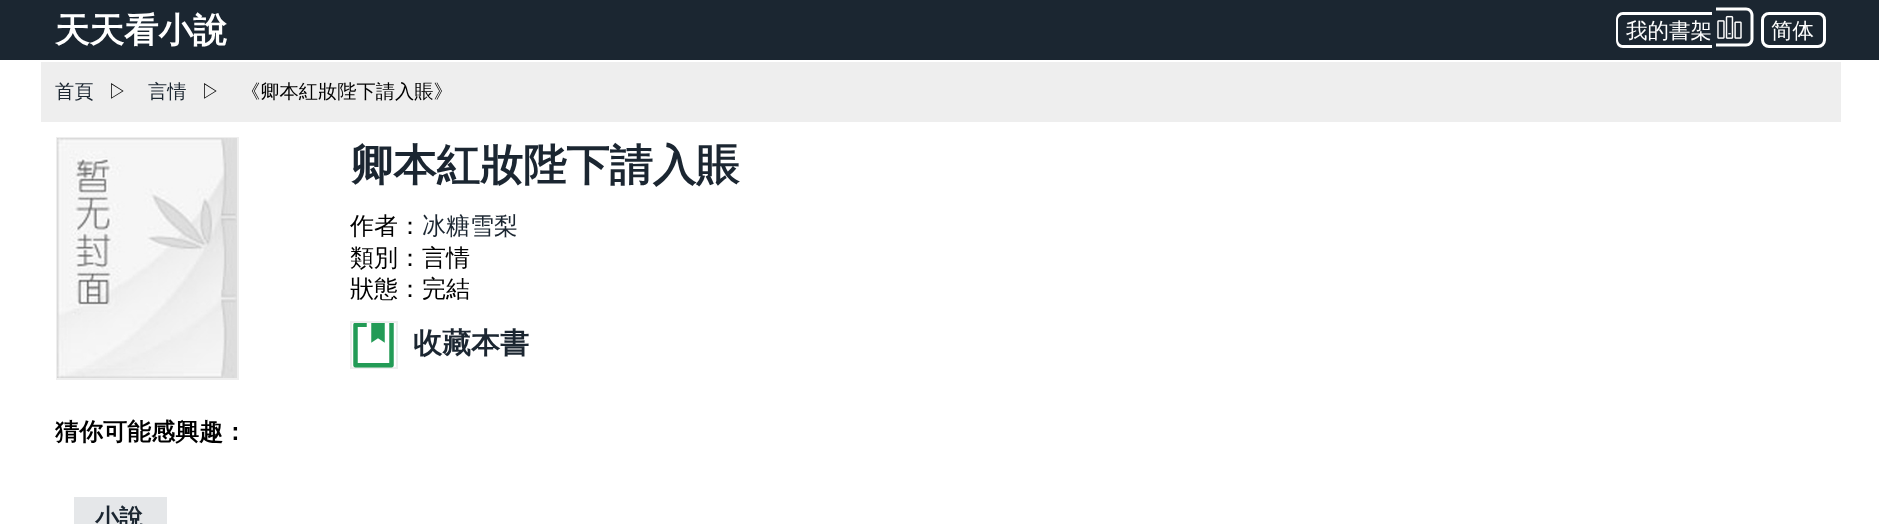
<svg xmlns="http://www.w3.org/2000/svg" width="1879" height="524">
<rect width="100%" height="100%" fill="#fff"/>
<rect width="1879" height="60" fill="#1b2631"/>
<text x="55" y="42" style="font-family:WenQuanYi Zen Hei;font-size:34.5px;font-weight:bold;fill:#fff">天天看小說</text>
<path d="M1623 12h89v36h-89c-4 0-7-3-7-8v-20c0-5 3-8 7-8zm0 3h89v30h-89c-2 0-5-2-5-5v-20c0-3 3-5 5-5z" fill="#fff" fill-rule="evenodd"/>
<path d="M1716 7.5h30c4 0 7.5 3.5 7.5 7.5v24c0 4-3.5 7.5-7.5 7.5h-30zm0 3h30c2.5 0 4.5 2 4.5 4.5v24c0 2.5-2 4.5-4.5 4.5h-30z" fill="#fff" fill-rule="evenodd"/>
<text x="1626" y="38" style="font-family:WenQuanYi Zen Hei;font-size:21.5px;font-weight:500;fill:#fff">我的書架</text>
<image x="1717" y="15" width="25" height="24" href="media/1.png"/>
<rect x="1762.5" y="13.5" width="62" height="33" rx="6.5" fill="none" stroke="#fff" stroke-width="3"/>
<text x="1771" y="38" style="font-family:WenQuanYi Zen Hei;font-size:21.5px;font-weight:500;fill:#fff">简体</text>
<rect x="41" y="62" width="1800" height="60" fill="#eee"/>
<text x="55" y="98" style="font-family:WenQuanYi Zen Hei;font-size:19.25px;font-weight:500;fill:#1b2631">首頁</text>
<text x="108" y="98" style="font-family:WenQuanYi Zen Hei;font-size:19.25px;font-weight:500;fill:#000">▷</text>
<text x="148" y="98" style="font-family:WenQuanYi Zen Hei;font-size:19.25px;font-weight:500;fill:#1b2631">言情</text>
<text x="201" y="98" style="font-family:WenQuanYi Zen Hei;font-size:19.25px;font-weight:500;fill:#000">▷</text>
<text x="241" y="98" style="font-family:WenQuanYi Zen Hei;font-size:19.25px;font-weight:500;fill:#000">《卿本紅妝陛下請入賬》</text>
<rect x="57" y="138" width="181" height="241" fill="none" stroke="#eee" stroke-width="2"/>
<image x="57" y="138" width="180" height="240" href="media/2.png"/>
<text x="350" y="180" style="font-family:WenQuanYi Zen Hei;font-size:43.25px;font-weight:bold;fill:#1b2631">卿本紅妝陛下請入賬</text>
<text x="350" y="234" style="font-family:WenQuanYi Zen Hei;font-size:24px;font-weight:500;fill:#000">作者：</text>
<text x="422" y="234" style="font-family:WenQuanYi Zen Hei;font-size:24px;font-weight:500;fill:#1b2631">冰糖雪梨</text>
<text x="350" y="266" style="font-family:WenQuanYi Zen Hei;font-size:24px;font-weight:500;fill:#000">類別：言情</text>
<text x="350" y="297" style="font-family:WenQuanYi Zen Hei;font-size:24px;font-weight:500;fill:#000">狀態：完結</text>
<rect x="351" y="322" width="46" height="46" fill="none" stroke="#eee" stroke-width="2"/>
<image x="353" y="323" width="41" height="45" href="media/3.png"/>
<text x="413" y="353" style="font-family:WenQuanYi Zen Hei;font-size:29px;font-weight:bold;fill:#1b2631">收藏本書</text>
<text x="55" y="440" style="font-family:WenQuanYi Zen Hei;font-size:24px;font-weight:bold;fill:#000">猜你可能感興趣：</text>
<rect x="74" y="497" width="93" height="27" fill="#e5e7e9"/>
<text x="95" y="526" style="font-family:WenQuanYi Zen Hei;font-size:24px;font-weight:bold;fill:#1b2631">小說</text>
</svg>
